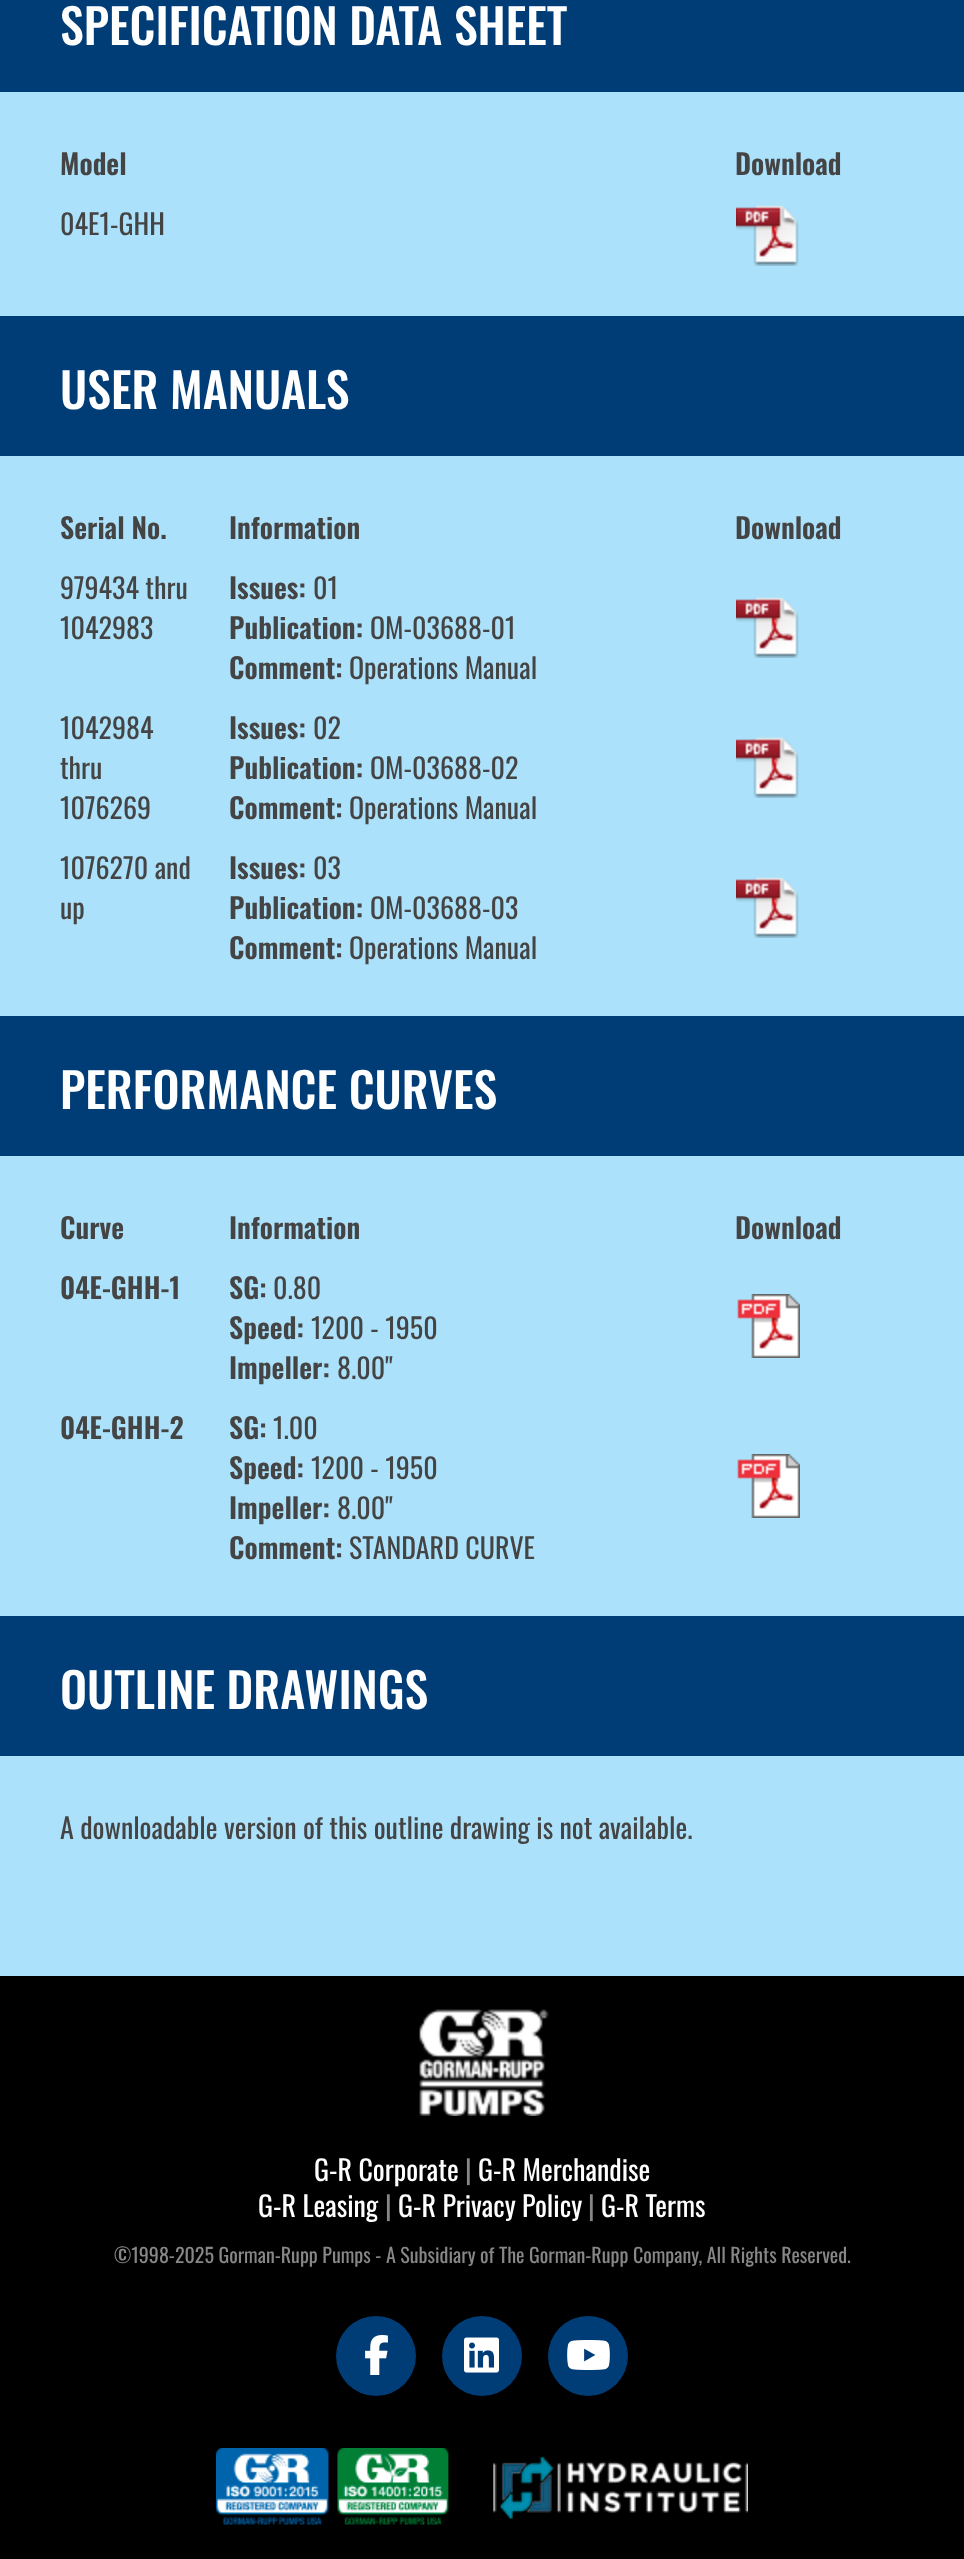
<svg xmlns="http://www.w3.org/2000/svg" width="964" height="2559">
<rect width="100%" height="100%" fill="#abe1fa"/>
<rect width="964" height="92" fill="#003c75"/>
<text x="60" y="45" style="font-family:Oswald;font-size:48px;font-weight:500;fill:#fff">SPECIFICATION DATA SHEET</text>
<text x="60" y="175" style="font-family:Oswald;font-size:28px;font-weight:600;fill:#444">Model</text>
<text x="735" y="175" style="font-family:Oswald;font-size:28px;font-weight:600;fill:#444">Download</text>
<text x="60" y="235" style="font-family:Oswald;font-size:28px;fill:#444">04E1-GHH</text>
<image x="736" y="205" width="63" height="61" href="media/1.png"/>
<rect y="316" width="964" height="140" fill="#003c75"/>
<text x="60" y="409" style="font-family:Oswald;font-size:48px;font-weight:500;fill:#fff">USER MANUALS</text>
<text x="60" y="539" style="font-family:Oswald;font-size:28px;font-weight:600;fill:#444">Serial No.</text>
<text x="229" y="539" style="font-family:Oswald;font-size:28px;font-weight:600;fill:#444">Information</text>
<text x="735" y="539" style="font-family:Oswald;font-size:28px;font-weight:600;fill:#444">Download</text>
<text x="60" y="599" style="font-family:Oswald;font-size:28px;fill:#444">979434 thru</text>
<text x="60" y="639" style="font-family:Oswald;font-size:28px;fill:#444">1042983</text>
<text x="229" y="599" style="font-family:Oswald;font-size:28px;font-weight:600;fill:#444">Issues:</text>
<text x="313" y="599" style="font-family:Oswald;font-size:28px;fill:#444">01</text>
<text x="229" y="639" style="font-family:Oswald;font-size:28px;font-weight:600;fill:#444">Publication:</text>
<text x="370" y="639" style="font-family:Oswald;font-size:28px;fill:#444">OM-03688-01</text>
<text x="229" y="679" style="font-family:Oswald;font-size:28px;font-weight:600;fill:#444">Comment:</text>
<text x="349" y="679" style="font-family:Oswald;font-size:28px;fill:#444">Operations Manual</text>
<image x="736" y="597" width="63" height="61" href="media/1.png"/>
<text x="60" y="739" style="font-family:Oswald;font-size:28px;fill:#444">1042984</text>
<text x="60" y="779" style="font-family:Oswald;font-size:28px;fill:#444">thru</text>
<text x="60" y="819" style="font-family:Oswald;font-size:28px;fill:#444">1076269</text>
<text x="229" y="739" style="font-family:Oswald;font-size:28px;font-weight:600;fill:#444">Issues:</text>
<text x="313" y="739" style="font-family:Oswald;font-size:28px;fill:#444">02</text>
<text x="229" y="779" style="font-family:Oswald;font-size:28px;font-weight:600;fill:#444">Publication:</text>
<text x="370" y="779" style="font-family:Oswald;font-size:28px;fill:#444">OM-03688-02</text>
<text x="229" y="819" style="font-family:Oswald;font-size:28px;font-weight:600;fill:#444">Comment:</text>
<text x="349" y="819" style="font-family:Oswald;font-size:28px;fill:#444">Operations Manual</text>
<image x="736" y="737" width="63" height="61" href="media/1.png"/>
<text x="60" y="879" style="font-family:Oswald;font-size:28px;fill:#444">1076270 and</text>
<text x="60" y="919" style="font-family:Oswald;font-size:28px;fill:#444">up</text>
<text x="229" y="879" style="font-family:Oswald;font-size:28px;font-weight:600;fill:#444">Issues:</text>
<text x="313" y="879" style="font-family:Oswald;font-size:28px;fill:#444">03</text>
<text x="229" y="919" style="font-family:Oswald;font-size:28px;font-weight:600;fill:#444">Publication:</text>
<text x="370" y="919" style="font-family:Oswald;font-size:28px;fill:#444">OM-03688-03</text>
<text x="229" y="959" style="font-family:Oswald;font-size:28px;font-weight:600;fill:#444">Comment:</text>
<text x="349" y="959" style="font-family:Oswald;font-size:28px;fill:#444">Operations Manual</text>
<image x="736" y="877" width="63" height="61" href="media/1.png"/>
<rect y="1016" width="964" height="140" fill="#003c75"/>
<text x="60" y="1109" style="font-family:Oswald;font-size:48px;font-weight:500;fill:#fff">PERFORMANCE CURVES</text>
<text x="60" y="1239" style="font-family:Oswald;font-size:28px;font-weight:600;fill:#444">Curve</text>
<text x="229" y="1239" style="font-family:Oswald;font-size:28px;font-weight:600;fill:#444">Information</text>
<text x="735" y="1239" style="font-family:Oswald;font-size:28px;font-weight:600;fill:#444">Download</text>
<text x="60" y="1299" style="font-family:Oswald;font-size:28px;font-weight:600;fill:#444">04E-GHH-1</text>
<text x="229" y="1299" style="font-family:Oswald;font-size:28px;font-weight:600;fill:#444">SG:</text>
<text x="273" y="1299" style="font-family:Oswald;font-size:28px;fill:#444">0.80</text>
<text x="229" y="1339" style="font-family:Oswald;font-size:28px;font-weight:600;fill:#444">Speed:</text>
<text x="311" y="1339" style="font-family:Oswald;font-size:28px;fill:#444">1200 - 1950</text>
<text x="229" y="1379" style="font-family:Oswald;font-size:28px;font-weight:600;fill:#444">Impeller:</text>
<text x="337" y="1379" style="font-family:Oswald;font-size:28px;fill:#444">8.00"</text>
<image x="737" y="1294" width="63" height="64" href="media/2.png"/>
<text x="60" y="1439" style="font-family:Oswald;font-size:28px;font-weight:600;fill:#444">04E-GHH-2</text>
<text x="229" y="1439" style="font-family:Oswald;font-size:28px;font-weight:600;fill:#444">SG:</text>
<text x="273" y="1439" style="font-family:Oswald;font-size:28px;fill:#444">1.00</text>
<text x="229" y="1479" style="font-family:Oswald;font-size:28px;font-weight:600;fill:#444">Speed:</text>
<text x="311" y="1479" style="font-family:Oswald;font-size:28px;fill:#444">1200 - 1950</text>
<text x="229" y="1519" style="font-family:Oswald;font-size:28px;font-weight:600;fill:#444">Impeller:</text>
<text x="337" y="1519" style="font-family:Oswald;font-size:28px;fill:#444">8.00"</text>
<text x="229" y="1559" style="font-family:Oswald;font-size:28px;font-weight:600;fill:#444">Comment:</text>
<text x="349" y="1559" style="font-family:Oswald;font-size:28px;fill:#444">STANDARD CURVE</text>
<image x="737" y="1454" width="63" height="64" href="media/2.png"/>
<rect y="1616" width="964" height="140" fill="#003c75"/>
<text x="60" y="1709" style="font-family:Oswald;font-size:48px;font-weight:500;fill:#fff">OUTLINE DRAWINGS</text>
<text x="60" y="1839" style="font-family:Oswald;font-size:28px;fill:#444">A downloadable version of this outline drawing is not available.</text>
<rect y="1976" width="964" height="583" fill="#000"/>
<image x="419" y="2009" width="130" height="107" href="media/3.png"/>
<text x="314" y="2181" style="font-family:Oswald;font-size:28px;fill:#fff">G-R Corporate</text>
<text x="465" y="2181" style="font-family:Oswald;font-size:28px;fill:#878787">|</text>
<text x="478" y="2181" style="font-family:Oswald;font-size:28px;fill:#fff">G-R Merchandise</text>
<text x="258" y="2217" style="font-family:Oswald;font-size:28px;fill:#fff">G-R Leasing</text>
<text x="385" y="2217" style="font-family:Oswald;font-size:28px;fill:#878787">|</text>
<text x="398" y="2217" style="font-family:Oswald;font-size:28px;fill:#fff">G-R Privacy Policy</text>
<text x="588" y="2217" style="font-family:Oswald;font-size:28px;fill:#878787">|</text>
<text x="601" y="2217" style="font-family:Oswald;font-size:28px;fill:#fff">G-R Terms</text>
<text x="114" y="2263" style="font-family:Oswald;font-size:20px;fill:#878787">©1998-2025 Gorman-Rupp Pumps - A Subsidiary of The Gorman-Rupp Company, All Rights Reserved.</text>
<circle cx="376" cy="2356" r="40" fill="#003c75"/>
<image x="365" y="2335" width="23" height="40" href="media/4.png"/>
<circle cx="482" cy="2356" r="40" fill="#003c75"/>
<image x="464" y="2337" width="35" height="36" href="media/5.png"/>
<circle cx="588" cy="2356" r="40" fill="#003c75"/>
<image x="567" y="2340" width="43" height="30" href="media/6.png"/>
<image x="216" y="2448" width="532" height="77" href="media/7.png"/>
</svg>
